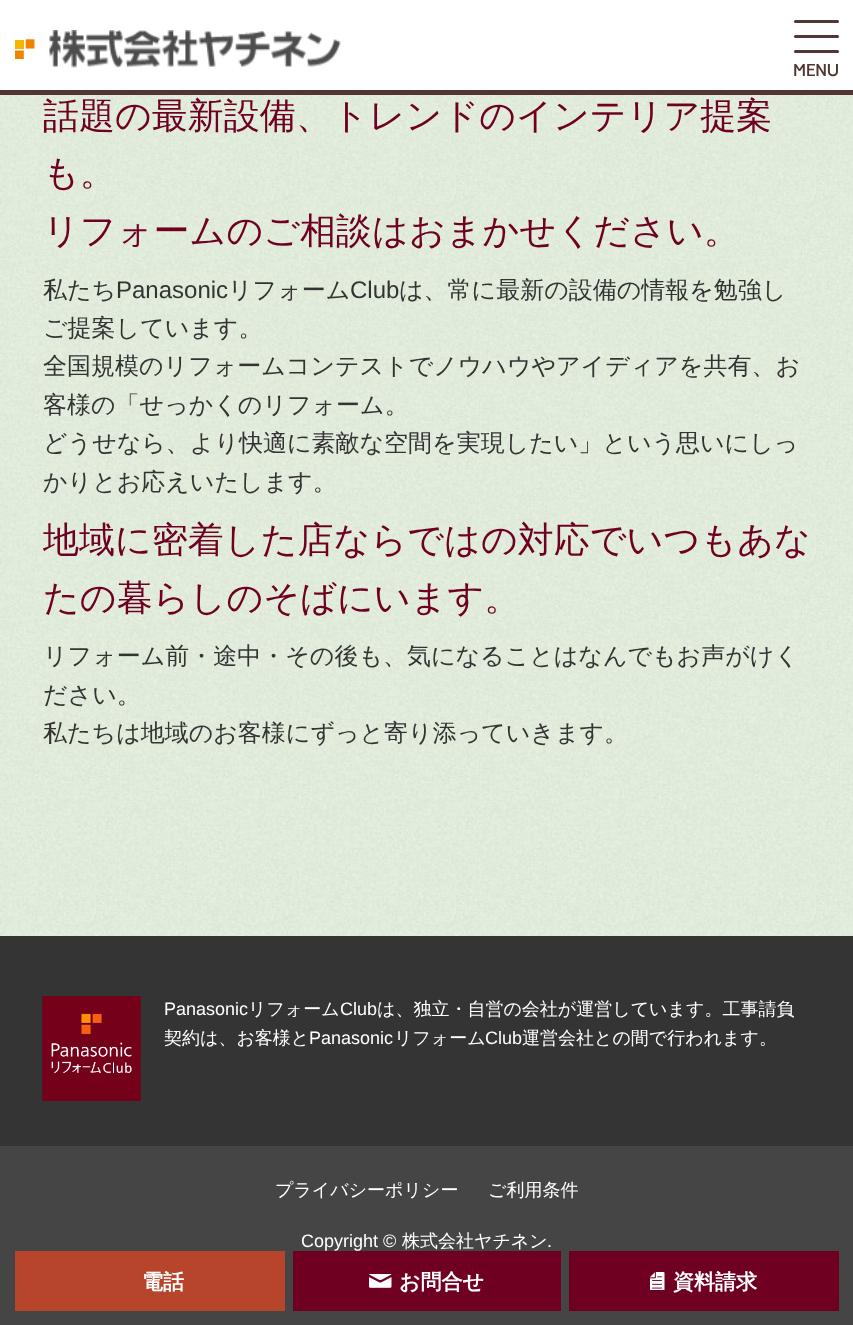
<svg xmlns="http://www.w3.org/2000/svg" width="853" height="1325">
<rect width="100%" height="100%" fill="#fff"/>
<image x="0" y="95" width="853" height="841" href="media/1.png"/>
<rect y="90" width="853" height="5" fill="#523634"/>
<image x="15" y="39" width="20" height="20" href="media/2.png"/>
<image x="49" y="30" width="292" height="38" href="media/3.png"/>
<rect x="794" y="20" width="45" height="3" rx="1.5" fill="#523634"/>
<rect x="794" y="35" width="45" height="3" rx="1.5" fill="#523634"/>
<rect x="794" y="50" width="45" height="3" rx="1.5" fill="#523634"/>
<text x="793" y="76" style="font-family:Carme;font-size:16.5px;font-weight:bold;fill:#523634">MENU</text>
<text x="43" y="128" style="font-family:WenQuanYi Zen Hei;font-size:36px;font-weight:500;fill:#6f0021">話題の最新設備、トレンドのインテリア提案</text>
<text x="43" y="185" style="font-family:WenQuanYi Zen Hei;font-size:36px;font-weight:500;fill:#6f0021">も。</text>
<text x="43" y="243" style="font-family:WenQuanYi Zen Hei;font-size:36px;font-weight:500;fill:#6f0021">リフォームのご相談はおまかせください。</text>
<text x="43" y="298" style="font-family:WenQuanYi Zen Hei;font-size:24px;font-weight:500;fill:#333">私たち</text>
<text x="116" y="298" style="font-family:Liberation Sans;font-size:24px;fill:#333">Panasonic</text>
<text x="228" y="298" style="font-family:WenQuanYi Zen Hei;font-size:24px;font-weight:500;fill:#333">リフォーム</text>
<text x="350" y="298" style="font-family:Liberation Sans;font-size:24px;fill:#333">Club</text>
<text x="399" y="298" style="font-family:WenQuanYi Zen Hei;font-size:24px;font-weight:500;fill:#333">は、常に最新の設備の情報を勉強し</text>
<text x="43" y="336" style="font-family:WenQuanYi Zen Hei;font-size:24px;font-weight:500;fill:#333">ご提案しています。</text>
<text x="43" y="374" style="font-family:WenQuanYi Zen Hei;font-size:24px;font-weight:500;fill:#333">全国規模のリフォームコンテストでノウハウやアイディアを共有、お</text>
<text x="43" y="413" style="font-family:WenQuanYi Zen Hei;font-size:24px;font-weight:500;fill:#333">客様の「せっかくのリフォーム。</text>
<text x="43" y="451" style="font-family:WenQuanYi Zen Hei;font-size:24px;font-weight:500;fill:#333">どうせなら、より快適に素敵な空間を実現したい」という思いにしっ</text>
<text x="43" y="490" style="font-family:WenQuanYi Zen Hei;font-size:24px;font-weight:500;fill:#333">かりとお応えいたします。</text>
<text x="43" y="552" style="font-family:WenQuanYi Zen Hei;font-size:36px;font-weight:500;fill:#6f0021">地域に密着した店ならではの対応でいつもあな</text>
<text x="43" y="610" style="font-family:WenQuanYi Zen Hei;font-size:36px;font-weight:500;fill:#6f0021">たの暮らしのそばにいます。</text>
<text x="43" y="664" style="font-family:WenQuanYi Zen Hei;font-size:24px;font-weight:500;fill:#333">リフォーム前・途中・その後も、気になることはなんでもお声がけく</text>
<text x="43" y="703" style="font-family:WenQuanYi Zen Hei;font-size:24px;font-weight:500;fill:#333">ださい。</text>
<text x="43" y="741" style="font-family:WenQuanYi Zen Hei;font-size:24px;font-weight:500;fill:#333">私たちは地域のお客様にずっと寄り添っていきます。</text>
<rect y="936" width="853" height="210" fill="#343434"/>
<image x="42" y="996" width="99" height="105" href="media/4.png"/>
<text x="164" y="1015" style="font-family:Liberation Sans;font-size:18px;fill:#fff">Panasonic</text>
<text x="248" y="1015" style="font-family:WenQuanYi Zen Hei;font-size:18px;font-weight:500;fill:#fff">リフォーム</text>
<text x="340" y="1015" style="font-family:Liberation Sans;font-size:18px;fill:#fff">Club</text>
<text x="377" y="1015" style="font-family:WenQuanYi Zen Hei;font-size:18px;font-weight:500;fill:#fff">は、独立・自営の会社が運営しています。工事請負</text>
<text x="164" y="1044" style="font-family:WenQuanYi Zen Hei;font-size:18px;font-weight:500;fill:#fff">契約は、お客様と</text>
<text x="309" y="1044" style="font-family:Liberation Sans;font-size:18px;fill:#fff">Panasonic</text>
<text x="394" y="1044" style="font-family:WenQuanYi Zen Hei;font-size:18px;font-weight:500;fill:#fff">リフォーム</text>
<text x="485" y="1044" style="font-family:Liberation Sans;font-size:18px;fill:#fff">Club</text>
<text x="522" y="1044" style="font-family:WenQuanYi Zen Hei;font-size:18px;font-weight:500;fill:#fff">運営会社との間で行われます。</text>
<rect y="1146" width="853" height="179" fill="#454545"/>
<text x="275" y="1196" style="font-family:WenQuanYi Zen Hei;font-size:18px;font-weight:500;fill:#fff">プライバシーポリシー</text>
<text x="488" y="1196" style="font-family:WenQuanYi Zen Hei;font-size:18px;font-weight:500;fill:#fff">ご利用条件</text>
<text x="301" y="1247" style="font-family:Liberation Sans;font-size:18px;fill:#fff">Copyright ©</text>
<text x="402" y="1247" style="font-family:WenQuanYi Zen Hei;font-size:18px;font-weight:500;fill:#fff">株式会社ヤチネン</text>
<text x="547" y="1247" style="font-family:Liberation Sans;font-size:18px;fill:#fff">.</text>
<rect x="15" y="1251" width="270" height="60" fill="#b6452c"/>
<text x="142" y="1289" style="font-family:WenQuanYi Zen Hei;font-size:21px;font-weight:bold;fill:#fff">電話</text>
<rect x="293" y="1251" width="268" height="60" fill="#6f0021"/>
<image x="369" y="1274" width="23" height="14" href="media/5.png"/>
<text x="399" y="1289" style="font-family:WenQuanYi Zen Hei;font-size:21px;font-weight:bold;fill:#fff">お問合せ</text>
<rect x="569" y="1251" width="270" height="60" fill="#6f0021"/>
<image x="650" y="1272" width="15" height="18" href="media/6.png"/>
<text x="673" y="1289" style="font-family:WenQuanYi Zen Hei;font-size:21px;font-weight:bold;fill:#fff">資料請求</text>
</svg>
